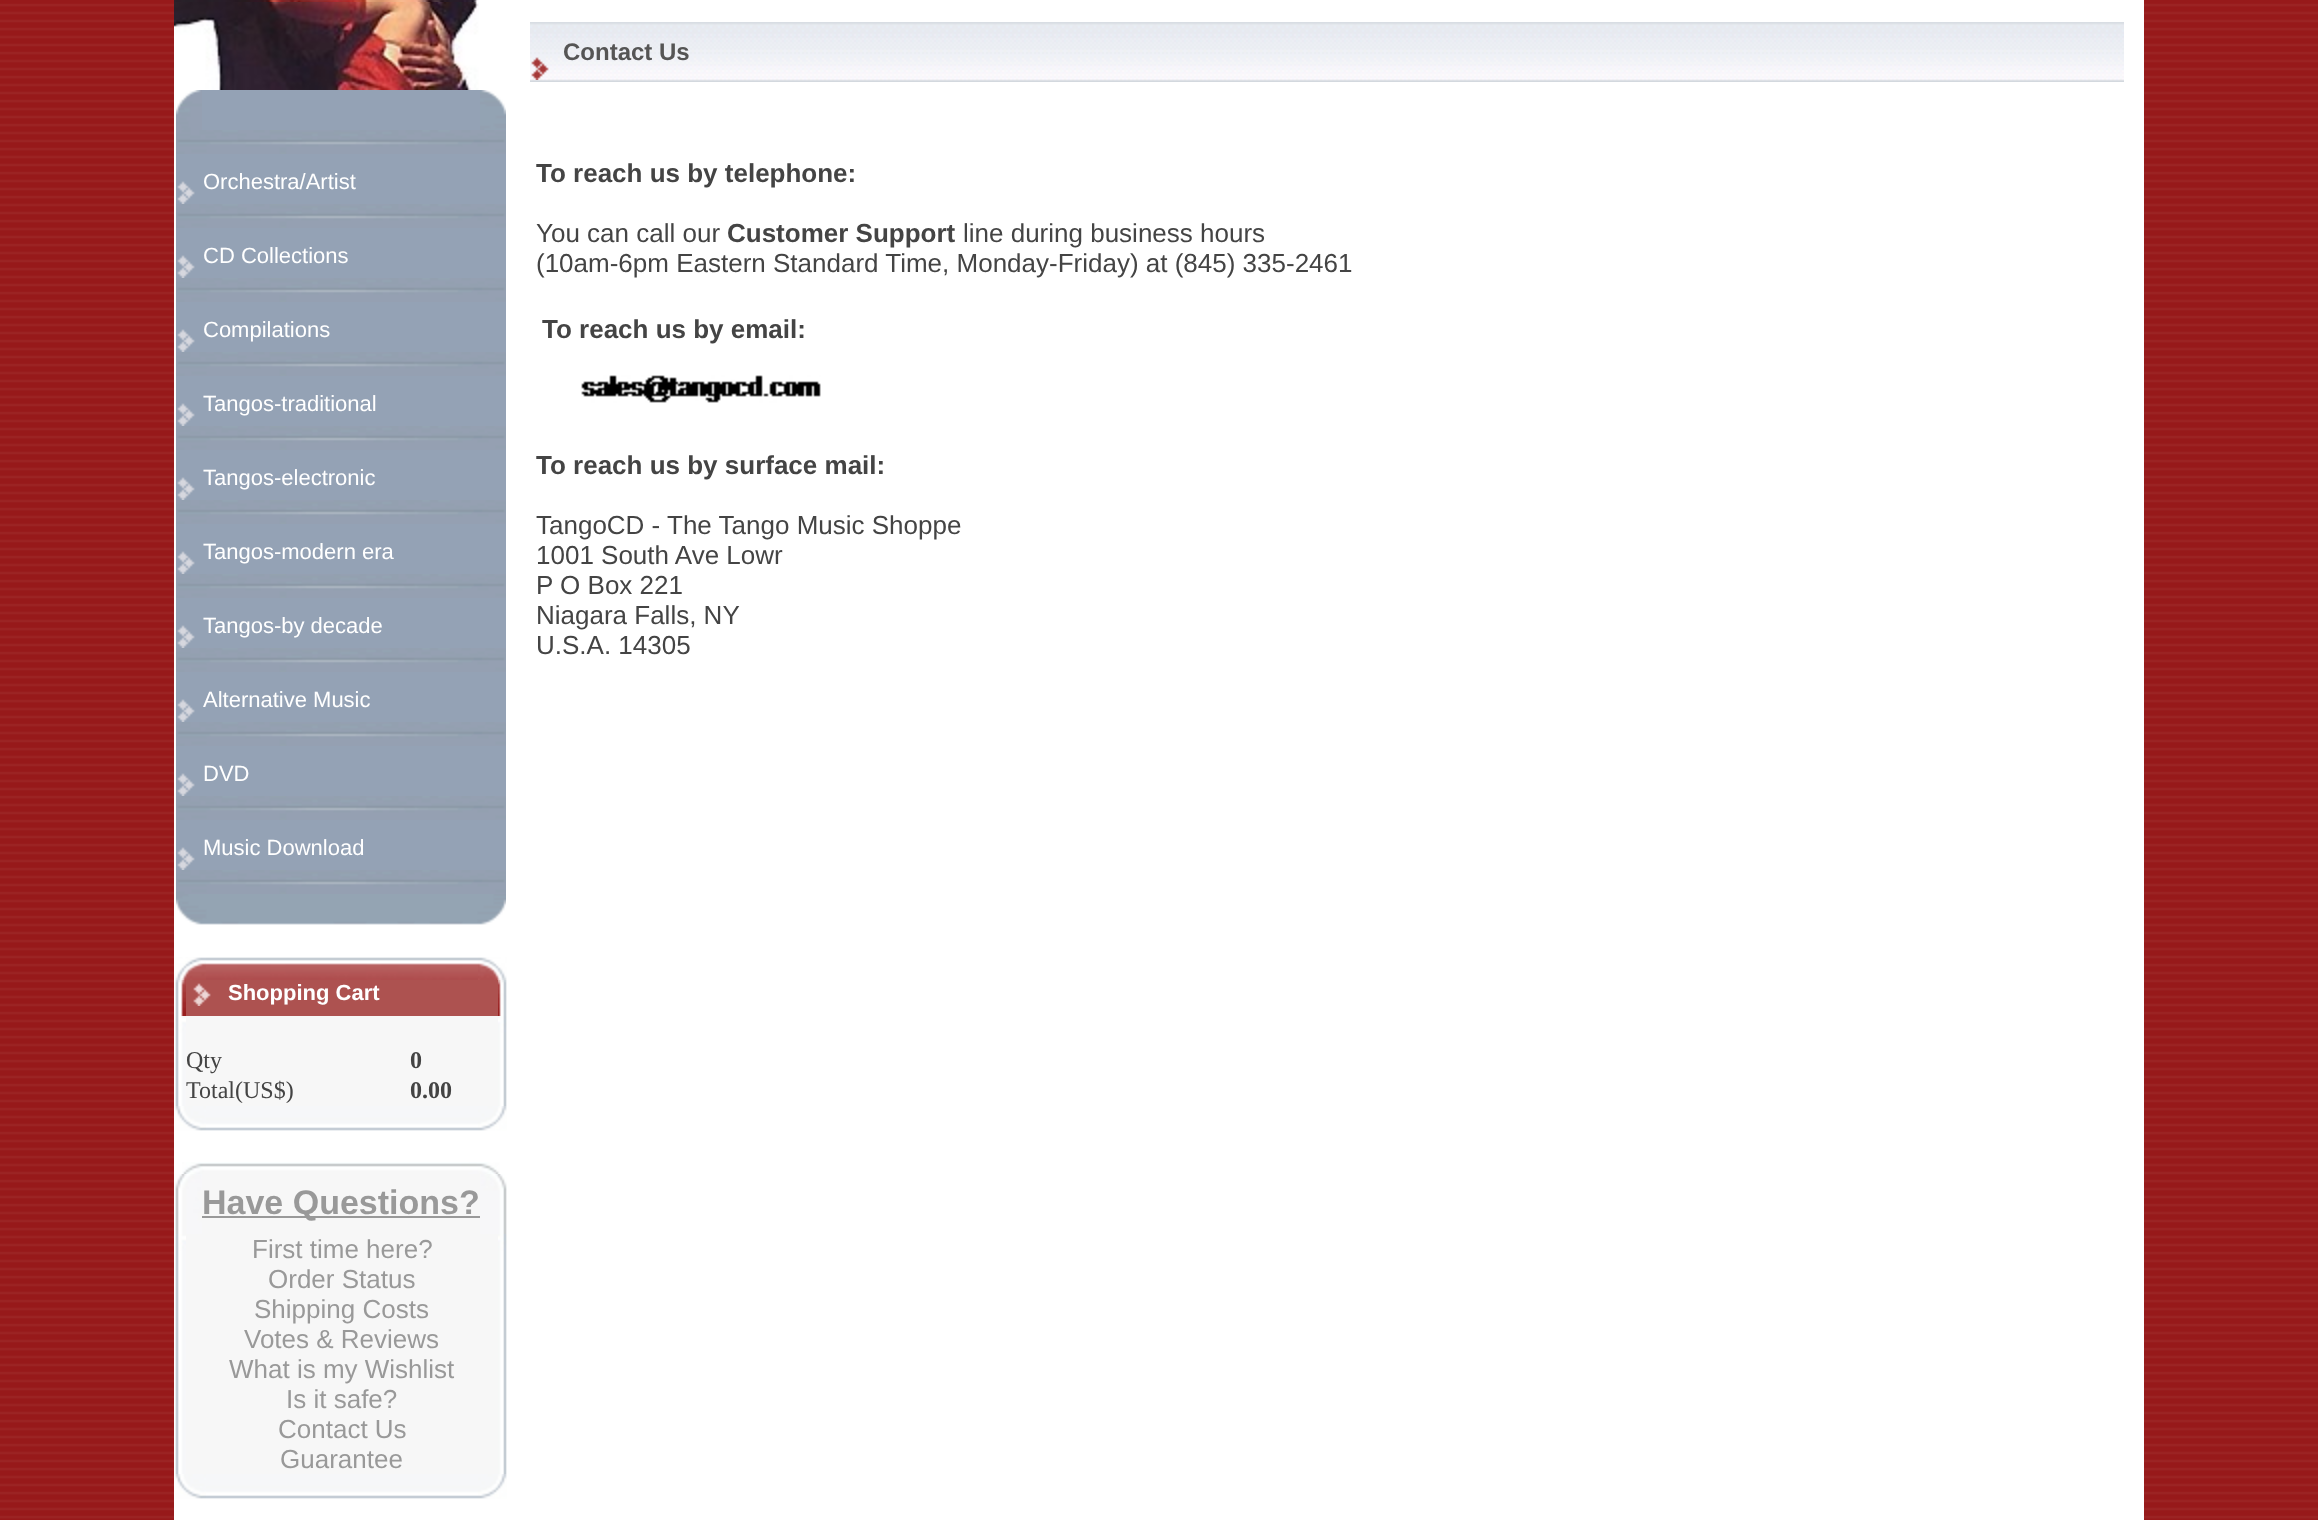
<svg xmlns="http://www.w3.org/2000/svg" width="2318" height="1520">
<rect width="100%" height="100%" fill="#fff"/>
<image x="0" y="0" width="2318" height="1520" href="media/1.png"/>
<rect x="174" width="1970" height="1520" fill="#fff"/>
<image x="174" y="0" width="305" height="2" href="media/2.png"/>
<image x="174" y="2" width="305" height="88" href="media/3.png"/>
<image x="176" y="90" width="26" height="40" href="media/4.png"/>
<rect x="202" y="90" width="278" height="40" fill="#94a2b5"/>
<image x="480" y="90" width="26" height="40" href="media/5.png"/>
<image x="176" y="130" width="330" height="24" href="media/6.png"/>
<rect x="176" y="154" width="330" height="50" fill="#94a2b5"/>
<image x="177" y="181" width="18" height="23" href="media/7.png"/>
<text x="203" y="189" style="font-family:Liberation Sans;font-size:22px;fill:#fff">Orchestra/Artist</text>
<image x="176" y="204" width="330" height="24" href="media/6.png"/>
<rect x="176" y="228" width="330" height="50" fill="#94a2b5"/>
<image x="177" y="255" width="18" height="23" href="media/7.png"/>
<text x="203" y="263" style="font-family:Liberation Sans;font-size:22px;fill:#fff">CD Collections</text>
<image x="176" y="278" width="330" height="24" href="media/6.png"/>
<rect x="176" y="302" width="330" height="50" fill="#94a2b5"/>
<image x="177" y="329" width="18" height="23" href="media/7.png"/>
<text x="203" y="337" style="font-family:Liberation Sans;font-size:22px;fill:#fff">Compilations</text>
<image x="176" y="352" width="330" height="24" href="media/6.png"/>
<rect x="176" y="376" width="330" height="50" fill="#94a2b5"/>
<image x="177" y="403" width="18" height="23" href="media/7.png"/>
<text x="203" y="411" style="font-family:Liberation Sans;font-size:22px;fill:#fff">Tangos-traditional</text>
<image x="176" y="426" width="330" height="24" href="media/6.png"/>
<rect x="176" y="450" width="330" height="50" fill="#94a2b5"/>
<image x="177" y="477" width="18" height="23" href="media/7.png"/>
<text x="203" y="485" style="font-family:Liberation Sans;font-size:22px;fill:#fff">Tangos-electronic</text>
<image x="176" y="500" width="330" height="24" href="media/6.png"/>
<rect x="176" y="524" width="330" height="50" fill="#94a2b5"/>
<image x="177" y="551" width="18" height="23" href="media/7.png"/>
<text x="203" y="559" style="font-family:Liberation Sans;font-size:22px;fill:#fff">Tangos-modern era</text>
<image x="176" y="574" width="330" height="24" href="media/6.png"/>
<rect x="176" y="598" width="330" height="50" fill="#94a2b5"/>
<image x="177" y="625" width="18" height="23" href="media/7.png"/>
<text x="203" y="633" style="font-family:Liberation Sans;font-size:22px;fill:#fff">Tangos-by decade</text>
<image x="176" y="648" width="330" height="24" href="media/6.png"/>
<rect x="176" y="672" width="330" height="50" fill="#94a2b5"/>
<image x="177" y="699" width="18" height="23" href="media/7.png"/>
<text x="203" y="707" style="font-family:Liberation Sans;font-size:22px;fill:#fff">Alternative Music</text>
<image x="176" y="722" width="330" height="24" href="media/6.png"/>
<rect x="176" y="746" width="330" height="50" fill="#94a2b5"/>
<image x="177" y="773" width="18" height="23" href="media/7.png"/>
<text x="203" y="781" style="font-family:Liberation Sans;font-size:22px;fill:#fff">DVD</text>
<image x="176" y="796" width="330" height="24" href="media/6.png"/>
<rect x="176" y="820" width="330" height="50" fill="#94a2b5"/>
<image x="177" y="847" width="18" height="23" href="media/7.png"/>
<text x="203" y="855" style="font-family:Liberation Sans;font-size:22px;fill:#fff">Music Download</text>
<image x="176" y="870" width="330" height="24" href="media/6.png"/>
<image x="176" y="894" width="330" height="31" href="media/8.png"/>
<image x="175" y="957" width="31" height="23" href="media/9.png"/>
<image x="206" y="957" width="272" height="23" href="media/10.png"/>
<image x="478" y="957" width="29" height="23" href="media/11.png"/>
<image x="175" y="980" width="11" height="36" href="media/12.png"/>
<rect x="186" y="980" width="312" height="36" fill="#ad5250"/>
<image x="193" y="983" width="18" height="23" href="media/13.png"/>
<text x="228" y="1000" style="font-family:Liberation Sans;font-size:22px;font-weight:bold;fill:#fff">Shopping Cart</text>
<image x="498" y="980" width="9" height="36" href="media/14.png"/>
<image x="175" y="1016" width="11" height="90" href="media/15.png"/>
<rect x="186" y="1016" width="312" height="90" fill="#f7f7f7"/>
<text x="186" y="1068" style="font-family:Liberation Serif;font-size:24px;fill:#444">Qty</text>
<text x="410" y="1068" style="font-family:Liberation Serif;font-size:24px;font-weight:bold;fill:#444">0</text>
<text x="186" y="1098" style="font-family:Liberation Serif;font-size:24px;fill:#444">Total(US$)</text>
<text x="410" y="1098" style="font-family:Liberation Serif;font-size:24px;font-weight:bold;fill:#444">0.00</text>
<image x="498" y="1016" width="9" height="90" href="media/16.png"/>
<image x="175" y="1106" width="31" height="25" href="media/17.png"/>
<image x="206" y="1106" width="272" height="25" href="media/18.png"/>
<image x="478" y="1106" width="29" height="25" href="media/19.png"/>
<image x="182" y="1162" width="318" height="12" href="media/20.png"/>
<image x="175" y="1174" width="27" height="60" href="media/21.png"/>
<rect x="202" y="1174" width="278" height="60" fill="#f7f7f7"/>
<rect x="202" y="1216" width="278" height="2" fill="#999"/>
<text x="202" y="1214" style="font-family:Liberation Sans;font-size:34px;font-weight:bold;fill:#999">Have Questions?</text>
<image x="480" y="1174" width="27" height="60" href="media/22.png"/>
<image x="175" y="1234" width="11" height="240" href="media/23.png"/>
<rect x="186" y="1234" width="312" height="240" fill="#f7f7f7"/>
<text x="252" y="1258" style="font-family:Liberation Sans;font-size:26px;fill:#999">First time here?</text>
<text x="268" y="1288" style="font-family:Liberation Sans;font-size:26px;fill:#999">Order Status</text>
<text x="254" y="1318" style="font-family:Liberation Sans;font-size:26px;fill:#999">Shipping Costs</text>
<text x="244" y="1348" style="font-family:Liberation Sans;font-size:26px;fill:#999">Votes &amp; Reviews</text>
<text x="229" y="1378" style="font-family:Liberation Sans;font-size:26px;fill:#999">What is my Wishlist</text>
<text x="286" y="1408" style="font-family:Liberation Sans;font-size:26px;fill:#999">Is it safe?</text>
<text x="278" y="1438" style="font-family:Liberation Sans;font-size:26px;fill:#999">Contact Us</text>
<text x="280" y="1468" style="font-family:Liberation Sans;font-size:26px;fill:#999">Guarantee</text>
<image x="498" y="1234" width="9" height="240" href="media/24.png"/>
<image x="175" y="1474" width="31" height="25" href="media/17.png"/>
<image x="206" y="1474" width="272" height="25" href="media/18.png"/>
<image x="478" y="1474" width="29" height="25" href="media/19.png"/>
<image x="530" y="22" width="20" height="60" href="media/25.png"/>
<image x="531" y="57" width="18" height="23" href="media/26.png"/>
<image x="550" y="22" width="1574" height="60" href="media/27.png"/>
<text x="563" y="60" style="font-family:Liberation Sans;font-size:24px;font-weight:bold;fill:#555">Contact Us</text>
<text x="536" y="182" style="font-family:Liberation Sans;font-size:26px;font-weight:bold;fill:#444">To reach us by telephone:</text>
<text x="536" y="242" style="font-family:Liberation Sans;font-size:26px;fill:#444">You can call our</text>
<text x="727" y="242" style="font-family:Liberation Sans;font-size:26px;font-weight:bold;fill:#444">Customer Support</text>
<text x="963" y="242" style="font-family:Liberation Sans;font-size:26px;fill:#444">line during business hours</text>
<text x="536" y="272" style="font-family:Liberation Sans;font-size:26px;fill:#444">(10am-6pm Eastern Standard Time, Monday-Friday) at (845) 335-2461</text>
<text x="542" y="338" style="font-family:Liberation Sans;font-size:26px;font-weight:bold;fill:#444">To reach us by email:</text>
<image x="581" y="375" width="240" height="28" href="media/28.png"/>
<text x="536" y="474" style="font-family:Liberation Sans;font-size:26px;font-weight:bold;fill:#444">To reach us by surface mail:</text>
<text x="536" y="534" style="font-family:Liberation Sans;font-size:26px;fill:#444">TangoCD - The Tango Music Shoppe</text>
<text x="536" y="564" style="font-family:Liberation Sans;font-size:26px;fill:#444">1001 South Ave Lowr</text>
<text x="536" y="594" style="font-family:Liberation Sans;font-size:26px;fill:#444">P O Box 221</text>
<text x="536" y="624" style="font-family:Liberation Sans;font-size:26px;fill:#444">Niagara Falls, NY</text>
<text x="536" y="654" style="font-family:Liberation Sans;font-size:26px;fill:#444">U.S.A. 14305</text>
</svg>
